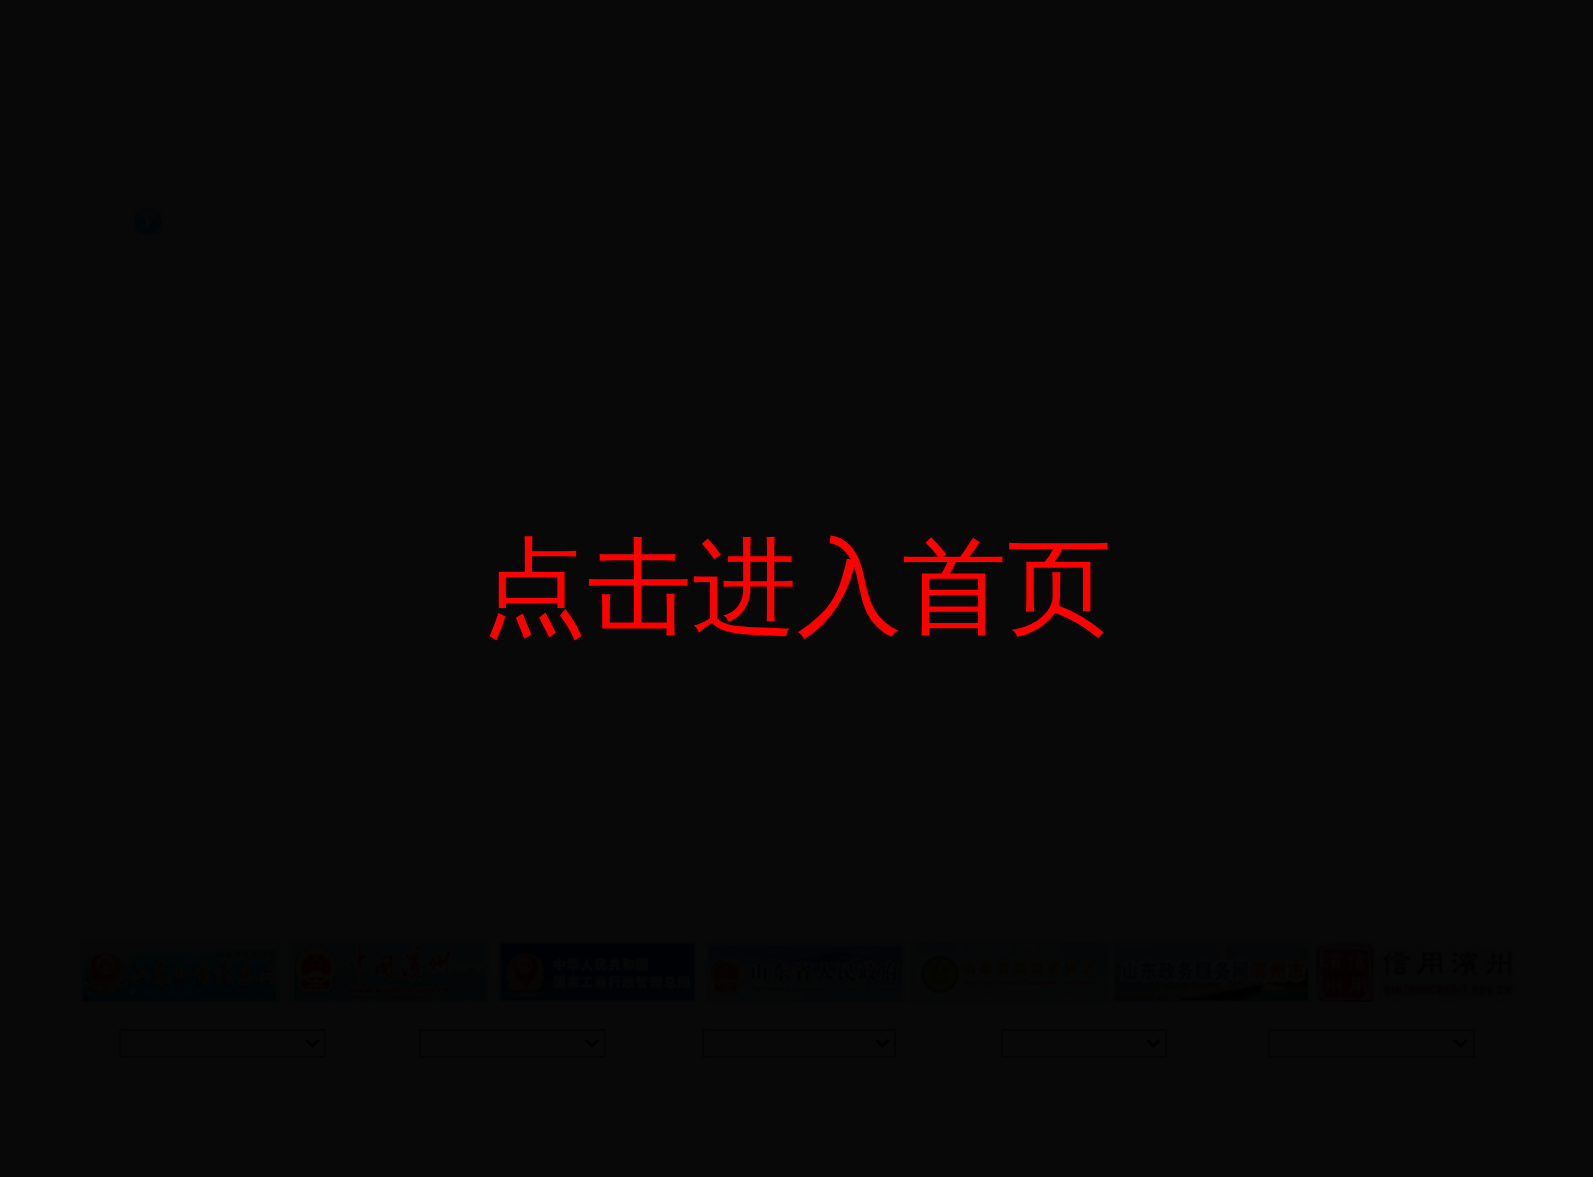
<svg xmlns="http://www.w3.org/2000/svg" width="1593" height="1177">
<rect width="100%" height="100%" fill="#080808"/>
<image x="133" y="208" width="29" height="28" href="media/1.png"/>
<text x="482" y="623" style="font-family:WenQuanYi Zen Hei;font-size:105px;font-weight:500;fill:#f00">点击进入首页</text>
<image x="81" y="940" width="200" height="62" href="media/2.png"/>
<image x="289" y="940" width="200" height="62" href="media/3.png"/>
<image x="498" y="940" width="200" height="62" href="media/4.png"/>
<image x="706" y="940" width="200" height="62" href="media/5.png"/>
<image x="910" y="940" width="200" height="62" href="media/6.png"/>
<image x="1113" y="940" width="200" height="62" href="media/7.png"/>
<image x="1315" y="940" width="200" height="62" href="media/8.png"/>
<rect x="120" y="1030" width="205" height="27" rx="2" fill="none" stroke="#040404" stroke-width="2"/>
<path d="M306.5 1040l6 6l6-6" fill="none" stroke="#000" stroke-width="3"/>
<rect x="420" y="1030" width="185" height="27" rx="2" fill="none" stroke="#040404" stroke-width="2"/>
<path d="M586 1040l6 6l6-6" fill="none" stroke="#000" stroke-width="3"/>
<rect x="703" y="1030" width="192" height="27" rx="2" fill="none" stroke="#040404" stroke-width="2"/>
<path d="M876.5 1040l6 6l6-6" fill="none" stroke="#000" stroke-width="3"/>
<rect x="1002" y="1030" width="164" height="27" rx="2" fill="none" stroke="#040404" stroke-width="2"/>
<path d="M1147.5 1040l6 6l6-6" fill="none" stroke="#000" stroke-width="3"/>
<rect x="1269" y="1030" width="205" height="27" rx="2" fill="none" stroke="#040404" stroke-width="2"/>
<path d="M1454.5 1040l6 6l6-6" fill="none" stroke="#000" stroke-width="3"/>
</svg>
